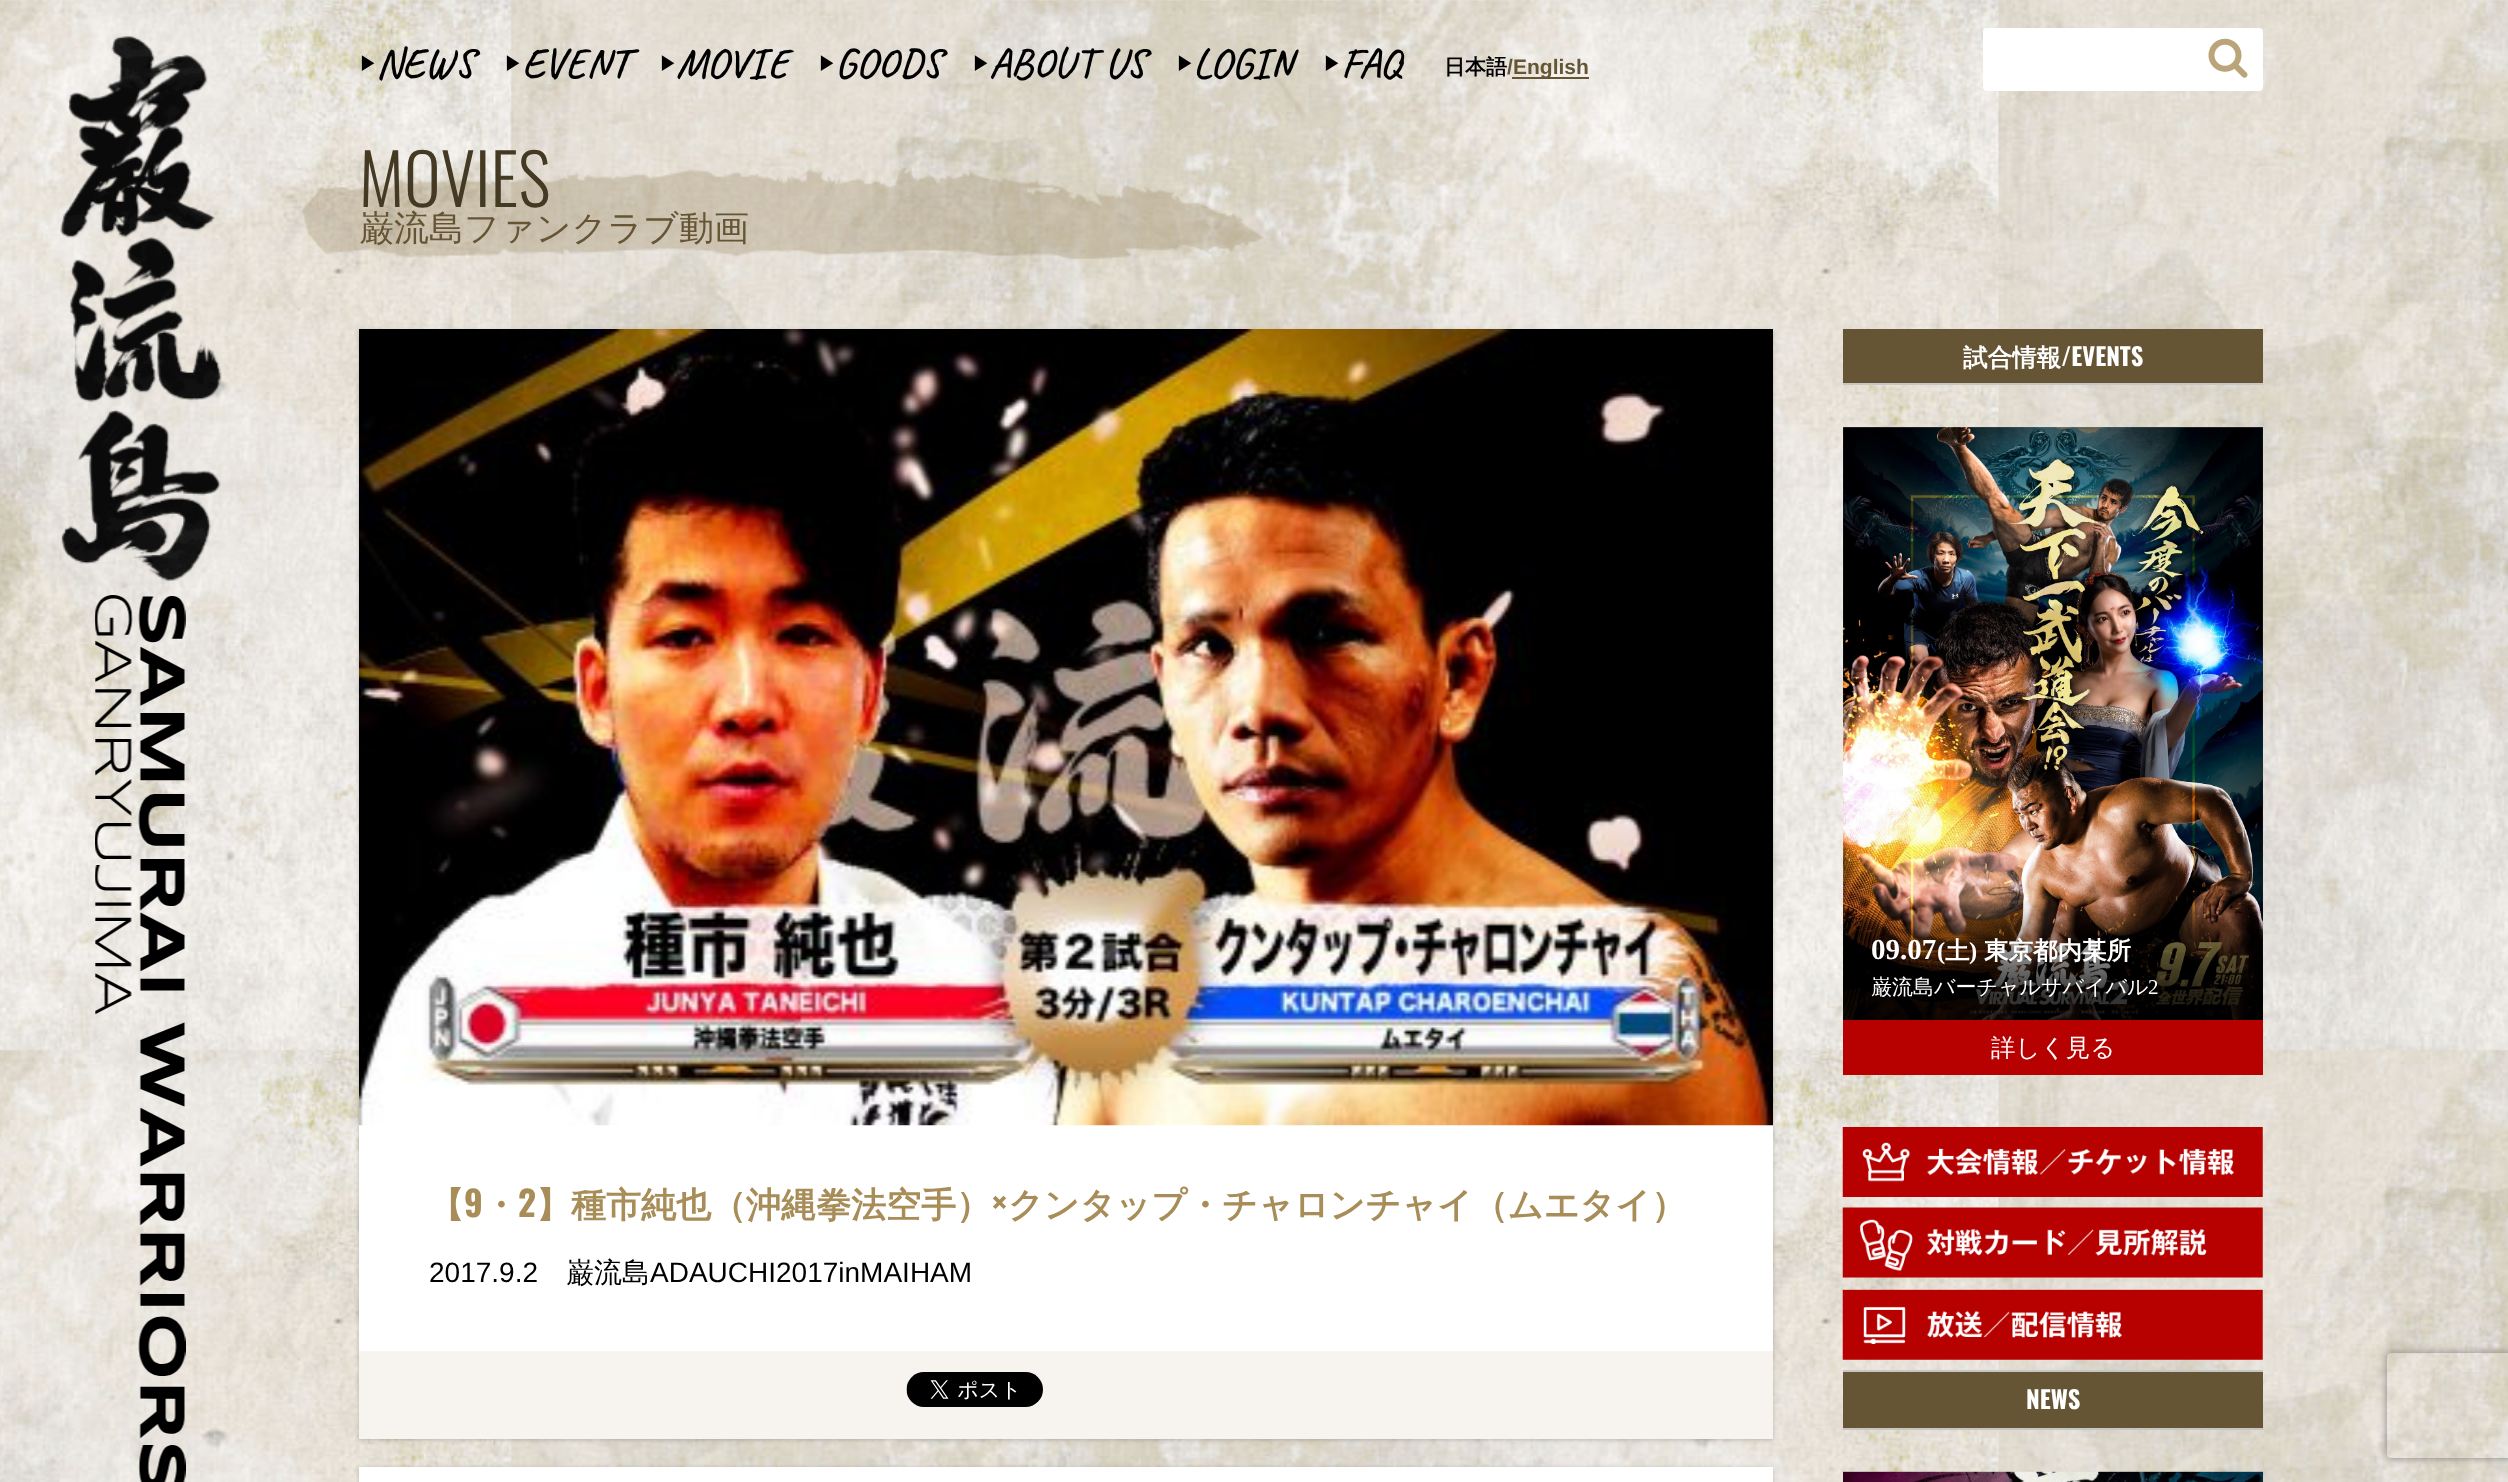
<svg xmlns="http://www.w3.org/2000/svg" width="2508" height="1482">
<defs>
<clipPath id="clip1"><path d="M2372 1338h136v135h-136zm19 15h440c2 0 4 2 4 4v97c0 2-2 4-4 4h-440c-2 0-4-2-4-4v-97c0-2 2-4 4-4z" clip-rule="evenodd"/></clipPath>
</defs>
<rect width="100%" height="100%" fill="#fff"/>
<image x="0" y="0" width="2508" height="1482" href="media/1.png"/>
<image x="60" y="36" width="162" height="545" href="media/2.png"/>
<image x="95" y="595" width="91" height="887" href="media/3.png"/>
<text x="359" y="70" style="font-family:WenQuanYi Zen Hei;font-size:18px;font-weight:bold;fill:#000">▶︎</text>
<text x="376" y="77" style="font-family:Caveat;font-size:42px;font-weight:600;fill:#000">NEWS</text>
<text x="504" y="70" style="font-family:WenQuanYi Zen Hei;font-size:18px;font-weight:bold;fill:#000">▶︎</text>
<text x="522" y="77" style="font-family:Caveat;font-size:42px;font-weight:600;fill:#000">EVENT</text>
<text x="659" y="70" style="font-family:WenQuanYi Zen Hei;font-size:18px;font-weight:bold;fill:#000">▶︎</text>
<text x="676" y="77" style="font-family:Caveat;font-size:42px;font-weight:600;fill:#000">MOVIE</text>
<text x="818" y="70" style="font-family:WenQuanYi Zen Hei;font-size:18px;font-weight:bold;fill:#000">▶︎</text>
<text x="835" y="77" style="font-family:Caveat;font-size:42px;font-weight:600;fill:#000">GOODS</text>
<text x="972" y="70" style="font-family:WenQuanYi Zen Hei;font-size:18px;font-weight:bold;fill:#000">▶︎</text>
<text x="989" y="77" style="font-family:Caveat;font-size:42px;font-weight:600;fill:#000">ABOUT US</text>
<text x="1176" y="70" style="font-family:WenQuanYi Zen Hei;font-size:18px;font-weight:bold;fill:#000">▶︎</text>
<text x="1193" y="77" style="font-family:Caveat;font-size:42px;font-weight:600;fill:#000">LOGIN</text>
<text x="1323" y="70" style="font-family:WenQuanYi Zen Hei;font-size:18px;font-weight:bold;fill:#000">▶︎</text>
<text x="1341" y="77" style="font-family:Caveat;font-size:42px;font-weight:600;fill:#000">FAQ</text>
<text x="1444" y="74" style="font-family:WenQuanYi Zen Hei;font-size:21px;font-weight:bold;fill:#000">日本語</text>
<text x="1507" y="74" style="font-family:Liberation Sans;font-size:21px;font-weight:bold;fill:#655535">/</text>
<rect x="1512" y="77" width="77" height="2" fill="#655535"/>
<text x="1513" y="74" style="font-family:Liberation Sans;font-size:21px;font-weight:bold;fill:#655535">English</text>
<rect x="1984" y="29" width="278" height="61" rx="3" fill="#fff" stroke="#fff" stroke-width="2"/>
<image x="2208" y="38" width="40" height="40" href="media/4.png"/>
<image x="302" y="167" width="962" height="92" href="media/5.png"/>
<text x="359" y="207" style="font-family:Oswald;font-size:70px;font-weight:300;fill:#443923">MOVIES</text>
<text x="359" y="240" style="font-family:WenQuanYi Zen Hei;font-size:35px;font-weight:500;fill:#655535">巌流島ファンクラブ動画</text>
<rect x="359" y="331" width="1414" height="1109" fill="#00000033" filter="blur(2px)"/>
<rect x="359" y="1125" width="1414" height="226" fill="#fff"/>
<image x="359" y="329" width="1414" height="797" href="media/6.png"/>
<text x="429" y="1217" style="font-family:WenQuanYi Zen Hei;font-size:35px;font-weight:bold;fill:#a88d58">【</text>
<text x="464" y="1217" style="font-family:Oswald;font-size:35px;font-weight:bold;fill:#a88d58">9</text>
<text x="483" y="1217" style="font-family:WenQuanYi Zen Hei;font-size:35px;font-weight:bold;fill:#a88d58">・</text>
<text x="518" y="1217" style="font-family:Oswald;font-size:35px;font-weight:bold;fill:#a88d58">2</text>
<text x="536" y="1217" style="font-family:WenQuanYi Zen Hei;font-size:35px;font-weight:bold;fill:#a88d58">】種市純也（沖縄拳法空手）</text>
<text x="991" y="1217" style="font-family:Oswald;font-size:35px;font-weight:bold;fill:#a88d58">×</text>
<text x="1008" y="1217" style="font-family:WenQuanYi Zen Hei;font-size:35px;font-weight:bold;fill:#a88d58">クンタップ・チャロンチャイ（ムエタイ）</text>
<text x="429" y="1282" style="font-family:Liberation Sans;font-size:28px;fill:#000">2017.9.2</text>
<text x="566" y="1282" style="font-family:WenQuanYi Zen Hei;font-size:28px;font-weight:500;fill:#000">巌流島</text>
<text x="650" y="1282" style="font-family:Liberation Sans;font-size:28px;fill:#000">ADAUCHI2017inMAIHAM</text>
<rect x="359" y="1351" width="1414" height="88" fill="#f7f4ef"/>
<image x="906" y="1372" width="137" height="35" href="media/7.png"/>
<rect x="359" y="1468" width="1414" height="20" fill="#00000033" filter="blur(2px)"/>
<rect x="359" y="1467" width="1414" height="15" fill="#fff"/>
<rect x="1843" y="329" width="420" height="54" fill="#655535"/>
<rect x="1843" y="383" width="420" height="2" fill="#c7c6c5"/>
<text x="1963" y="366" style="font-family:WenQuanYi Zen Hei;font-size:24.5px;font-weight:bold;fill:#fff">試合情報</text>
<text x="2061" y="366" style="font-family:Oswald;font-size:24.5px;font-weight:bold;fill:#fff">/EVENTS</text>
<image x="1843" y="427" width="420" height="593" href="media/8.png"/>
<text x="1871" y="959" style="font-family:Liberation Serif;font-size:29px;font-weight:bold;fill:#fff">09.07</text>
<text x="1937" y="959" style="font-family:Liberation Serif;font-size:24.5px;font-weight:bold;fill:#fff">(</text>
<text x="1945" y="959" style="font-family:WenQuanYi Zen Hei;font-size:24.5px;font-weight:bold;fill:#fff">土</text>
<text x="1969" y="959" style="font-family:Liberation Serif;font-size:24.5px;font-weight:bold;fill:#fff">)</text>
<text x="1984" y="959" style="font-family:WenQuanYi Zen Hei;font-size:24.5px;font-weight:bold;fill:#fff">東京都内某所</text>
<text x="1871" y="994" style="font-family:WenQuanYi Zen Hei;font-size:21px;font-weight:500;fill:#fff">巌流島バーチャルサバイバル</text>
<text x="2148" y="994" style="font-family:Liberation Serif;font-size:21px;fill:#fff">2</text>
<rect x="1843" y="1020" width="420" height="55" fill="#b70000"/>
<text x="1991" y="1056" style="font-family:WenQuanYi Zen Hei;font-size:24.5px;font-weight:500;fill:#fff">詳しく見る</text>
<rect x="1843" y="1370" width="420" height="2" fill="#c7c6c5"/>
<image x="1842" y="1127" width="421" height="70" href="media/9.png"/>
<image x="1842" y="1207" width="421" height="71" href="media/10.png"/>
<image x="1842" y="1289" width="421" height="71" href="media/11.png"/>
<rect x="1843" y="1372" width="420" height="56" fill="#655535"/>
<rect x="1843" y="1428" width="420" height="2" fill="#c7c6c5"/>
<text x="2026" y="1409" style="font-family:Oswald;font-size:24.5px;font-weight:bold;fill:#fff">NEWS</text>
<image x="1843" y="1471" width="420" height="11" href="media/12.png"/>
<g clip-path="url(#clip1)">
<rect x="2387" y="1353" width="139" height="105" rx="4" fill="#808080" filter="blur(4.5px)"/>
</g>
</svg>
